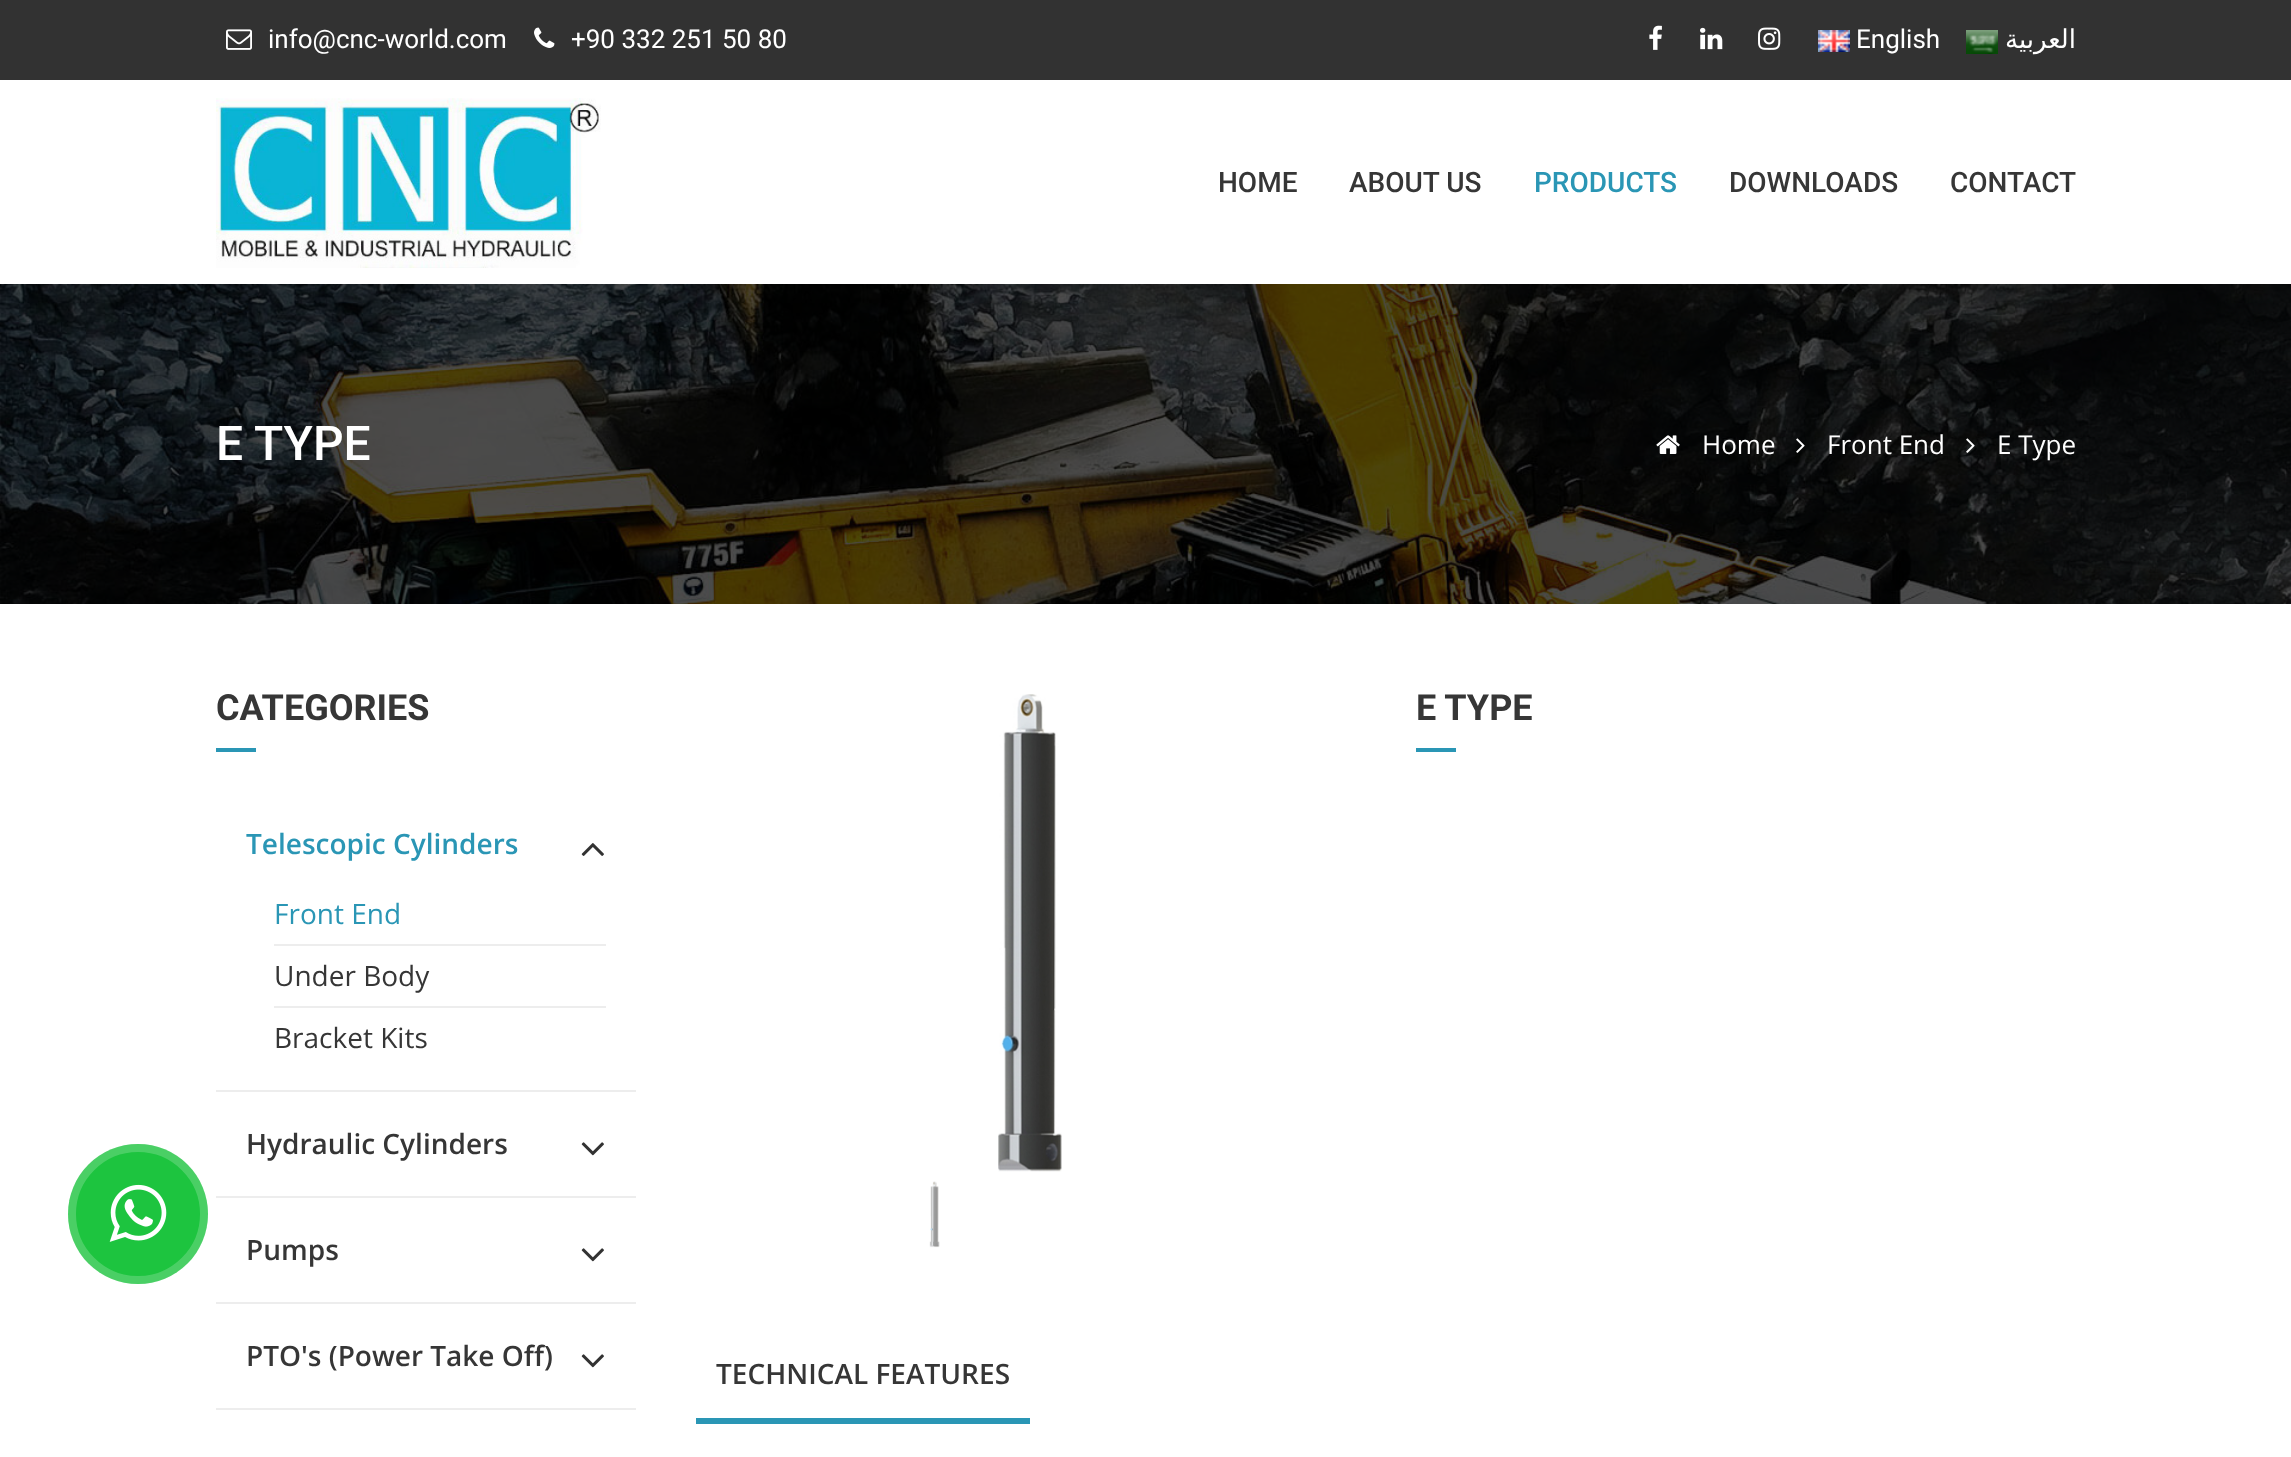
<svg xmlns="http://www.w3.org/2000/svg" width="2291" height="1457">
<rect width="100%" height="100%" fill="#fff"/>
<rect width="2291" height="80" fill="#323232"/>
<image x="226" y="29" width="26" height="21" href="media/1.png"/>
<text x="268" y="48" style="font-family:Roboto;font-size:26px;fill:#fff">info@cnc-world.com</text>
<image x="534" y="27" width="21" height="21" href="media/2.png"/>
<text x="571" y="48" style="font-family:Roboto;font-size:26px;fill:#fff">+90 332 251 50 80</text>
<image x="1649" y="25" width="13" height="25" href="media/3.png"/>
<image x="1700" y="27" width="23" height="23" href="media/4.png"/>
<image x="1758" y="27" width="23" height="23" href="media/5.png"/>
<image x="1818" y="30" width="32" height="22" href="media/6.png"/>
<text x="1856" y="48" style="font-family:Roboto;font-size:26px;fill:#fff">English</text>
<image x="1966" y="30" width="32" height="24" href="media/7.png"/>
<text x="2076" y="48" style="font-family:DejaVu Sans;font-size:26px;direction:rtl;fill:#fff">العربية</text>
<image x="216" y="98" width="385" height="170" href="media/8.png"/>
<text x="1218" y="192" style="font-family:Roboto;font-size:28px;font-weight:500;fill:#363636">HOME</text>
<text x="1349" y="192" style="font-family:Roboto;font-size:28px;font-weight:500;fill:#363636">ABOUT US</text>
<text x="1534" y="192" style="font-family:Roboto;font-size:28px;font-weight:500;fill:#2a96b5">PRODUCTS</text>
<text x="1729" y="192" style="font-family:Roboto;font-size:28px;font-weight:500;fill:#363636">DOWNLOADS</text>
<text x="1950" y="192" style="font-family:Roboto;font-size:28px;font-weight:500;fill:#363636">CONTACT</text>
<image x="0" y="284" width="2291" height="320" href="media/9.png"/>
<text x="216" y="460" style="font-family:Roboto;font-size:48px;font-weight:500;fill:#fff">E TYPE</text>
<image x="1656" y="435" width="24" height="19" href="media/10.png"/>
<text x="1702" y="454" style="font-family:Open Sans;font-size:26px;fill:#fff">Home</text>
<image x="1796" y="438" width="9" height="15" href="media/11.png"/>
<text x="1827" y="454" style="font-family:Open Sans;font-size:26px;fill:#fff">Front End</text>
<image x="1966" y="438" width="9" height="15" href="media/12.png"/>
<text x="1997" y="454" style="font-family:Open Sans;font-size:26px;fill:#fff">E Type</text>
<circle cx="138" cy="1214" r="70" fill="#1dc43f"/>
<circle cx="138" cy="1214" r="66" fill="none" stroke="#ffffff33" stroke-width="8"/>
<image x="109" y="1184" width="58" height="58" href="media/13.png"/>
<text x="216" y="720" style="font-family:Roboto;font-size:36px;font-weight:bold;fill:#363636">CATEGORIES</text>
<rect x="216" y="748" width="40" height="4" fill="#2a96b5"/>
<rect x="216" y="1090" width="420" height="2" fill="#ededed"/>
<text x="246" y="854" style="font-family:Open Sans;font-size:28px;font-weight:600;fill:#2a96b5">Telescopic Cylinders</text>
<image x="581" y="843" width="23" height="13" href="media/14.png"/>
<rect x="274" y="944" width="332" height="2" fill="#ededed"/>
<text x="274" y="924" style="font-family:Open Sans;font-size:28px;fill:#2a96b5">Front End</text>
<rect x="274" y="1006" width="332" height="2" fill="#ededed"/>
<text x="274" y="986" style="font-family:Open Sans;font-size:28px;fill:#363636">Under Body</text>
<text x="274" y="1048" style="font-family:Open Sans;font-size:28px;fill:#363636">Bracket Kits</text>
<rect x="216" y="1196" width="420" height="2" fill="#ededed"/>
<text x="246" y="1154" style="font-family:Open Sans;font-size:28px;font-weight:600;fill:#363636">Hydraulic Cylinders</text>
<image x="581" y="1142" width="23" height="14" href="media/15.png"/>
<rect x="216" y="1302" width="420" height="2" fill="#ededed"/>
<text x="246" y="1260" style="font-family:Open Sans;font-size:28px;font-weight:600;fill:#363636">Pumps</text>
<image x="581" y="1248" width="23" height="14" href="media/15.png"/>
<rect x="216" y="1408" width="420" height="2" fill="#ededed"/>
<text x="246" y="1366" style="font-family:Open Sans;font-size:28px;font-weight:600;fill:#363636">PTO's (Power Take Off)</text>
<image x="581" y="1354" width="23" height="14" href="media/15.png"/>
<image x="998" y="694" width="64" height="478" href="media/16.png"/>
<image x="929" y="1181" width="11" height="67" href="media/17.png"/>
<text x="1416" y="720" style="font-family:Roboto;font-size:36px;font-weight:bold;fill:#363636">E TYPE</text>
<rect x="1416" y="748" width="40" height="4" fill="#2a96b5"/>
<rect x="696" y="1418" width="334" height="6" fill="#2a96b5"/>
<text x="716" y="1384" style="font-family:Open Sans;font-size:28px;font-weight:600;fill:#363636">TECHNICAL FEATURES</text>
</svg>
